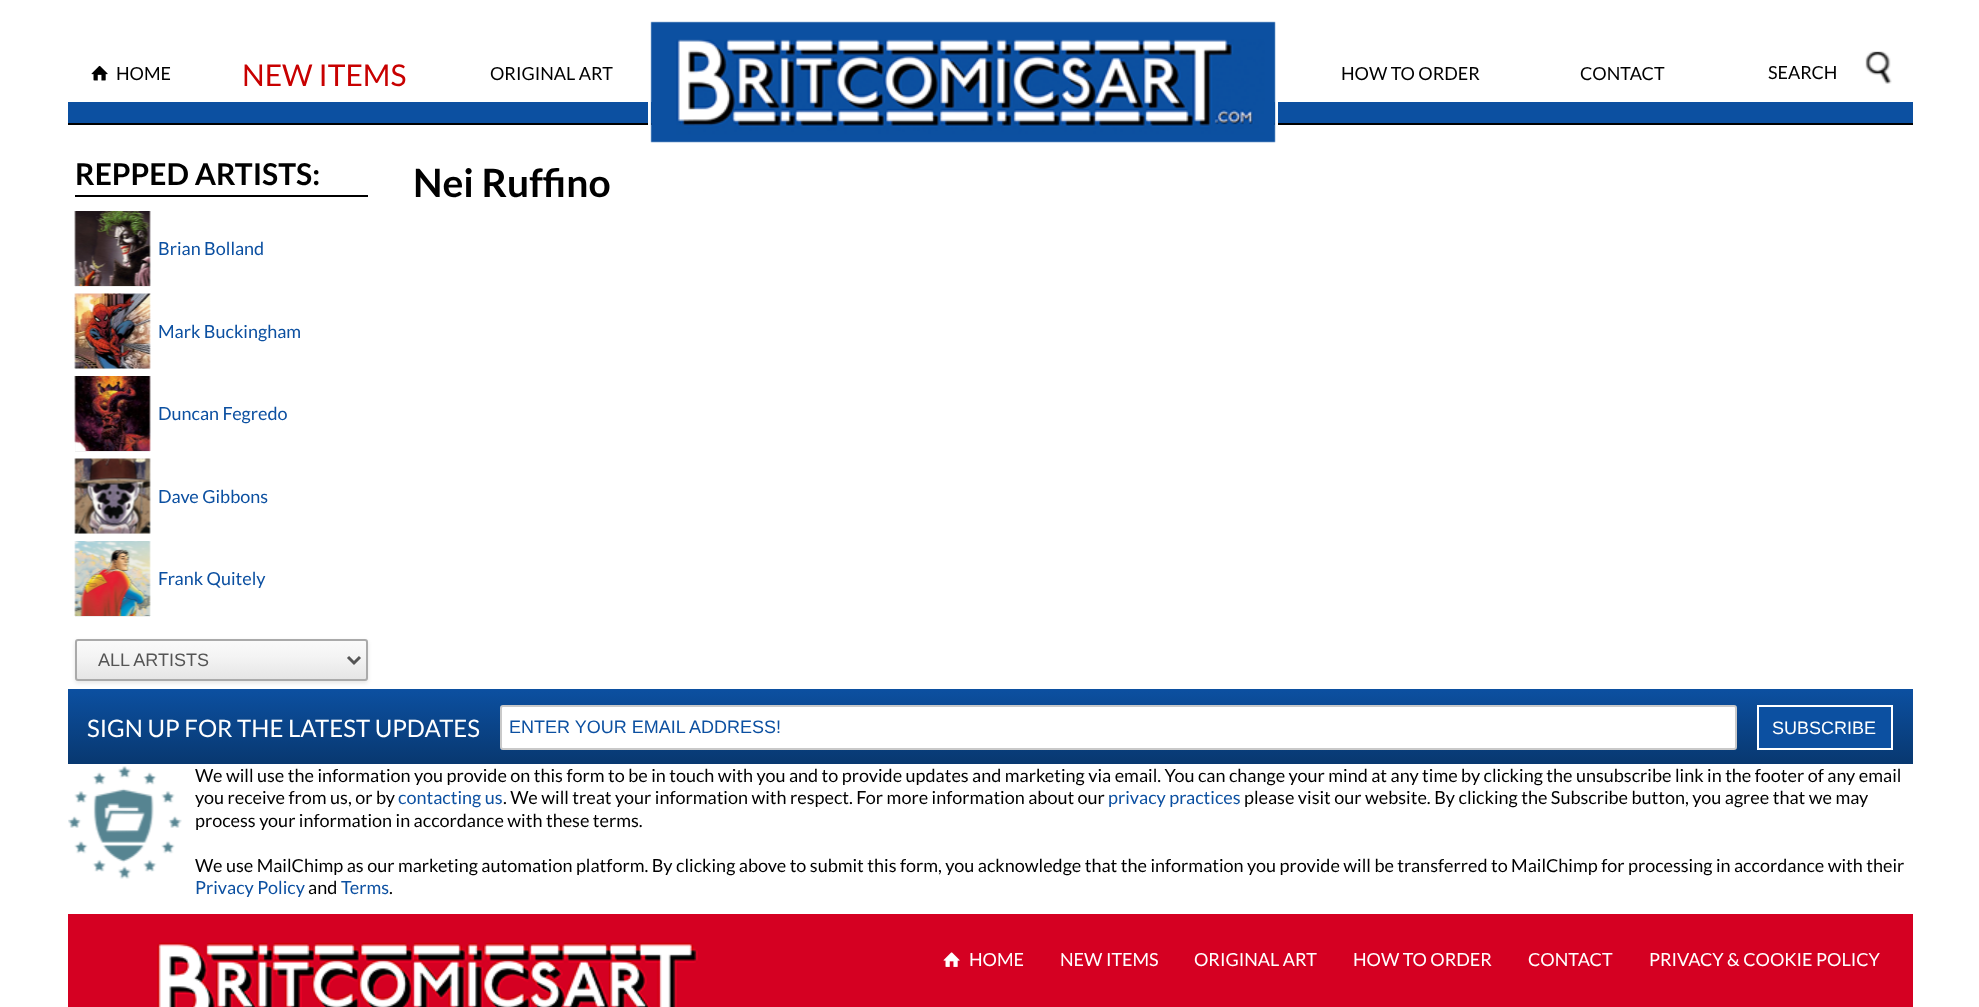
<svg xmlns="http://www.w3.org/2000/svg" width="1979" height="1007">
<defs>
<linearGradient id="g1" gradientUnits="userSpaceOnUse" x1="990" y1="764" x2="990" y2="689"><stop offset="0" stop-color="#083870"/><stop offset="1" stop-color="#0c50a1"/></linearGradient>
<linearGradient id="g2" gradientUnits="userSpaceOnUse" x1="221" y1="641" x2="221" y2="680"><stop offset="0" stop-color="#fafafa"/><stop offset="0.4" stop-color="#f4f4f4"/><stop offset="1" stop-color="#e5e5e5"/></linearGradient>
</defs>
<rect width="100%" height="100%" fill="#fff"/>
<image x="91" y="65" width="17" height="16" href="media/1.png"/>
<text x="116" y="80" style="font-family:Lato;font-size:18px;fill:#000">HOME</text>
<text x="242" y="86" style="font-family:Lato;font-size:30px;fill:#c80000">NEW ITEMS</text>
<text x="490" y="80" style="font-family:Lato;font-size:18px;fill:#000">ORIGINAL ART</text>
<rect x="68" y="102" width="1845" height="21" fill="#0c50a1"/>
<rect x="68" y="123" width="1845" height="2" fill="#000"/>
<rect x="649.5" y="21.5" width="627" height="123" fill="none" stroke="#fff" stroke-width="3"/>
<image x="650" y="21" width="626" height="122" href="media/2.png"/>
<text x="1341" y="80" style="font-family:Lato;font-size:18px;fill:#000">HOW TO ORDER</text>
<text x="1580" y="80" style="font-family:Lato;font-size:18px;fill:#000">CONTACT</text>
<text x="1768" y="79" style="font-family:Lato;font-size:18px;fill:#000">SEARCH</text>
<image x="1865" y="51" width="27" height="33" href="media/3.png"/>
<rect x="75" y="195" width="293" height="2" fill="#000"/>
<text x="75" y="185" style="font-family:Lato;font-size:30px;font-weight:bold;fill:#000">REPPED ARTISTS:</text>
<rect x="75" y="212" width="75" height="75" fill="#efefef"/>
<image x="74" y="211" width="77" height="75" href="media/4.png"/>
<text x="158" y="255" style="font-family:Lato;font-size:18px;fill:#0c50a1">Brian Bolland</text>
<rect x="75" y="294" width="75" height="75" fill="#efefef"/>
<image x="74" y="293" width="77" height="76" href="media/5.png"/>
<text x="158" y="338" style="font-family:Lato;font-size:18px;fill:#0c50a1">Mark Buckingham</text>
<rect x="75" y="377" width="75" height="75" fill="#efefef"/>
<image x="74" y="376" width="77" height="75" href="media/6.png"/>
<text x="158" y="420" style="font-family:Lato;font-size:18px;fill:#0c50a1">Duncan Fegredo</text>
<rect x="75" y="459" width="75" height="75" fill="#efefef"/>
<image x="74" y="458" width="77" height="76" href="media/7.png"/>
<text x="158" y="503" style="font-family:Lato;font-size:18px;fill:#0c50a1">Dave Gibbons</text>
<rect x="75" y="542" width="75" height="75" fill="#efefef"/>
<image x="74" y="541" width="77" height="75" href="media/8.png"/>
<text x="158" y="585" style="font-family:Lato;font-size:18px;fill:#0c50a1">Frank Quitely</text>
<rect x="68" y="689" width="1845" height="75" fill="url(#g1)"/>
<rect x="75" y="641" width="293" height="42" rx="3" fill="#0000001a" filter="blur(2px)"/>
<rect x="77" y="641" width="289" height="38" fill="url(#g2)"/>
<rect x="76" y="640" width="291" height="40" rx="2" fill="none" stroke="#aaa" stroke-width="2"/>
<path d="M348 657l6 6l6-6" fill="none" stroke="#555" stroke-width="3"/>
<text x="98" y="666" style="font-family:Liberation Sans;font-size:18px;fill:#555">ALL ARTISTS</text>
<text x="413" y="197" style="font-family:Lato;font-size:39px;font-weight:bold;fill:#000">Nei Ruffino</text>
<text x="87" y="737" style="font-family:Lato;font-size:24px;fill:#fff">SIGN UP FOR THE LATEST UPDATES</text>
<rect x="501" y="706" width="1235" height="43" rx="2" fill="#fff" stroke="#c9c9c9" stroke-width="2"/>
<text x="509" y="733" style="font-family:Liberation Sans;font-size:18px;fill:#0c50a1">ENTER YOUR EMAIL ADDRESS!</text>
<rect x="1758" y="706" width="134" height="43" fill="#0c50a1" stroke="#fff" stroke-width="2"/>
<text x="1772" y="734" style="font-family:Liberation Sans;font-size:18px;fill:#fff">SUBSCRIBE</text>
<image x="68" y="766" width="114" height="113" href="media/9.png"/>
<text x="195" y="782" style="font-family:Lato;font-size:18px;fill:#000">We will use the information you provide on this form to be in touch with you and to provide updates and marketing via email. You can change your mind at any time by clicking the unsubscribe link in the footer of any email</text>
<text x="195" y="804" style="font-family:Lato;font-size:18px;fill:#000">you receive from us, or by</text>
<text x="398" y="804" style="font-family:Lato;font-size:18px;fill:#0c50a1">contacting us</text>
<text x="503" y="804" style="font-family:Lato;font-size:18px;fill:#000">. We will treat your information with respect. For more information about our</text>
<text x="1108" y="804" style="font-family:Lato;font-size:18px;fill:#0c50a1">privacy practices</text>
<text x="1244" y="804" style="font-family:Lato;font-size:18px;fill:#000">please visit our website. By clicking the Subscribe button, you agree that we may</text>
<text x="195" y="827" style="font-family:Lato;font-size:18px;fill:#000">process your information in accordance with these terms.</text>
<text x="195" y="872" style="font-family:Lato;font-size:18px;fill:#000">We use MailChimp as our marketing automation platform. By clicking above to submit this form, you acknowledge that the information you provide will be transferred to MailChimp for processing in accordance with their</text>
<text x="195" y="894" style="font-family:Lato;font-size:18px;fill:#0c50a1">Privacy Policy</text>
<text x="308" y="894" style="font-family:Lato;font-size:18px;fill:#000">and</text>
<text x="341" y="894" style="font-family:Lato;font-size:18px;fill:#0c50a1">Terms</text>
<text x="389" y="894" style="font-family:Lato;font-size:18px;fill:#000">.</text>
<rect x="68" y="914" width="1845" height="93" fill="#d50022"/>
<image x="157" y="942" width="541" height="65" href="media/10.png"/>
<image x="943" y="952" width="17" height="15" href="media/11.png"/>
<text x="969" y="966" style="font-family:Lato;font-size:18px;fill:#fff">HOME</text>
<text x="1060" y="966" style="font-family:Lato;font-size:18px;fill:#fff">NEW ITEMS</text>
<text x="1194" y="966" style="font-family:Lato;font-size:18px;fill:#fff">ORIGINAL ART</text>
<text x="1353" y="966" style="font-family:Lato;font-size:18px;fill:#fff">HOW TO ORDER</text>
<text x="1528" y="966" style="font-family:Lato;font-size:18px;fill:#fff">CONTACT</text>
<text x="1649" y="966" style="font-family:Lato;font-size:18px;fill:#fff">PRIVACY &amp; COOKIE POLICY</text>
</svg>
